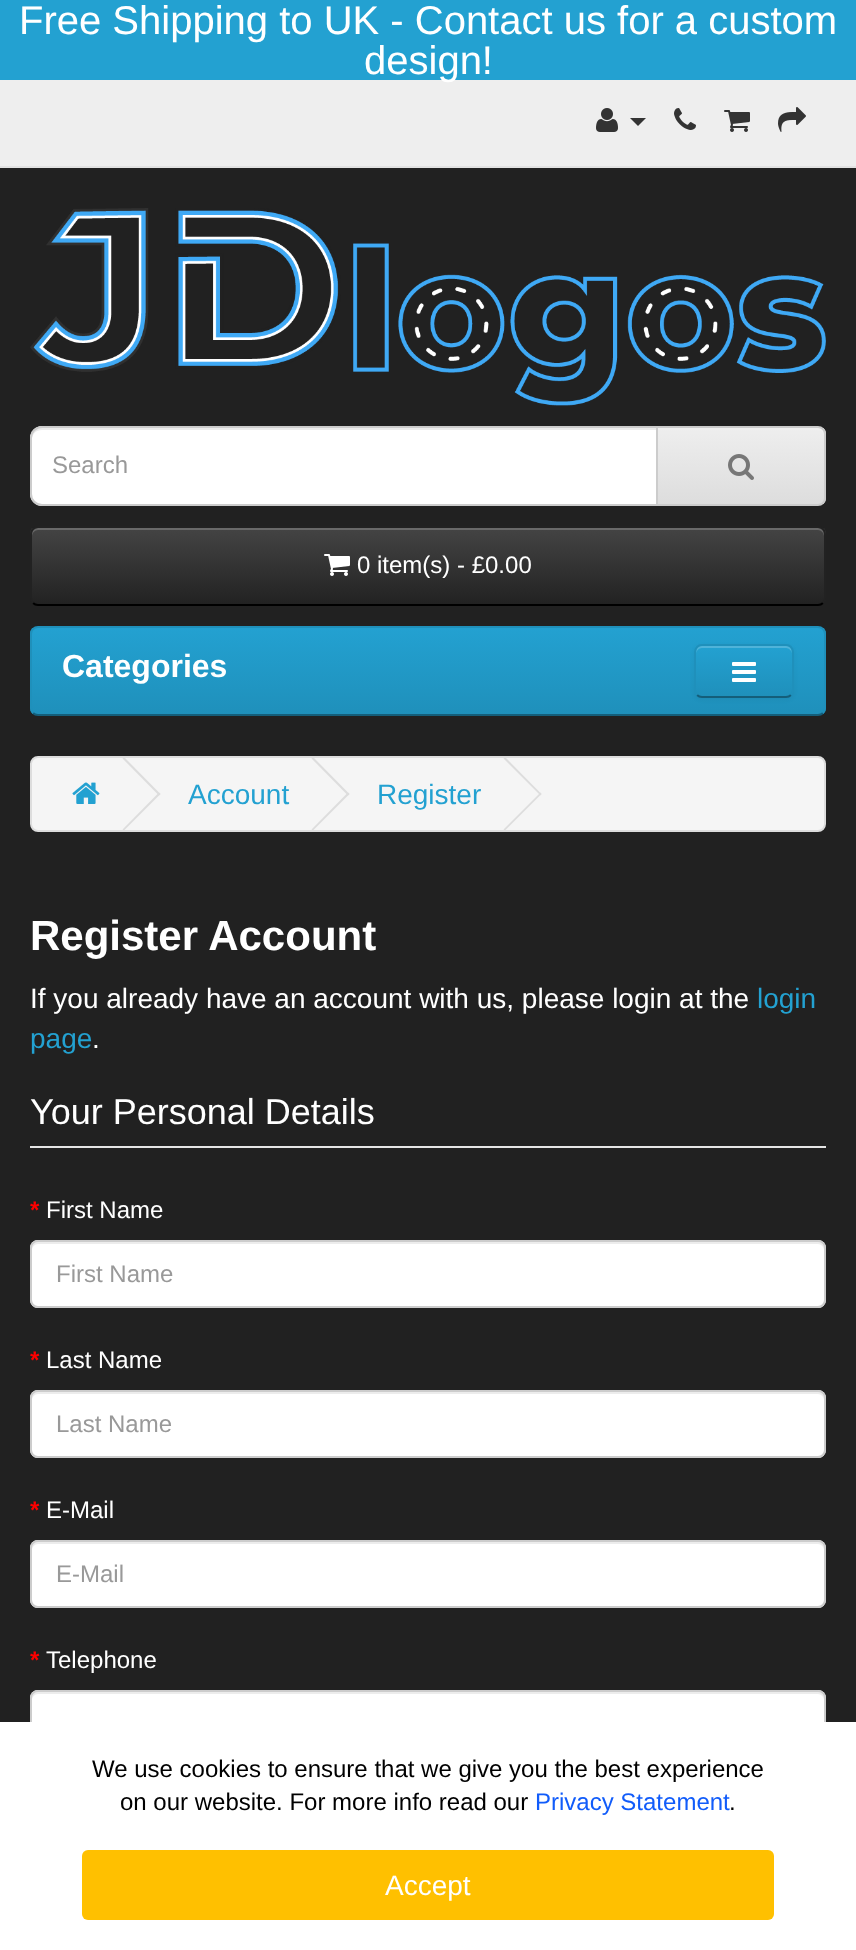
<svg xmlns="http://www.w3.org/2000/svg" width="856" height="1950">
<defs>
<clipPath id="clip1"><path d="M656 426h162c4.5 0 8 3.5 8 8v64c0 4.5-3.5 8-8 8h-162z"/></clipPath>
<linearGradient id="g1" gradientUnits="userSpaceOnUse" x1="741" y1="428" x2="741" y2="504"><stop offset="0" stop-color="#eee"/><stop offset="1" stop-color="#ddd"/></linearGradient>
<clipPath id="clip2"><rect x="30" y="526" width="796" height="80" rx="8"/></clipPath>
<linearGradient id="g2" gradientUnits="userSpaceOnUse" x1="428" y1="528" x2="428" y2="604"><stop offset="0" stop-color="#444"/><stop offset="1" stop-color="#222"/></linearGradient>
<clipPath id="clip3"><rect x="30" y="626" width="796" height="90" rx="8"/></clipPath>
<linearGradient id="g3" gradientUnits="userSpaceOnUse" x1="428" y1="628" x2="428" y2="714"><stop offset="0" stop-color="#23a1d1"/><stop offset="1" stop-color="#1f90bb"/></linearGradient>
<clipPath id="clip4"><rect x="694" y="644" width="100" height="54" rx="8"/></clipPath>
<linearGradient id="g4" gradientUnits="userSpaceOnUse" x1="744" y1="646" x2="744" y2="696"><stop offset="0" stop-color="#23a1d1"/><stop offset="1" stop-color="#1f90bb"/></linearGradient>
</defs>
<rect width="100%" height="100%" fill="#212121"/>
<rect width="856" height="80" fill="#23a1d1"/>
<text x="19" y="34" style="font-family:Liberation Sans;font-size:40px;fill:#fff">Free Shipping to UK - Contact us for a custom</text>
<rect y="80" width="856" height="86" fill="#eee"/>
<text x="364" y="74" style="font-family:Liberation Sans;font-size:40px;fill:#fff">design!</text>
<rect y="166" width="856" height="2" fill="#e2e2e2"/>
<image x="596" y="108" width="22" height="24" href="media/1.png"/>
<path d="M630 118h16l-8 8z" fill="#333"/>
<image x="674" y="108" width="22" height="22" href="media/2.png"/>
<image x="724" y="110" width="26" height="22" href="media/3.png"/>
<image x="778" y="107" width="28" height="25" href="media/4.png"/>
<image x="30" y="208" width="796" height="198" href="media/5.png"/>
<path d="M42 426h616v80h-616c-6.5 0-12-5.5-12-12v-56c0-6.5 5.5-12 12-12z" fill="#fff"/>
<path d="M42 430h614v-2h-614c-7 0-10 6-10 12c0-6 4-10 10-10z" fill="#ececec"/>
<path d="M42 427h615v78h-615c-6 0-11-5-11-11v-56c0-6 5-11 11-11z" fill="none" stroke="#ccc" stroke-width="2"/>
<text x="52" y="473" style="font-family:Liberation Sans;font-size:24px;fill:#999">Search</text>
<g clip-path="url(#clip1)">
<rect x="658" y="428" width="168" height="76" fill="url(#g1)"/>
</g>
<path d="M658 430h160c3 0 6 3 6 6v-2c0-3-3-6-6-6h-160z" fill="#f1f1f1"/>
<path d="M657 427h161c4 0 7 3 7 7v64c0 4-3 7-7 7h-161z" fill="none" stroke="#ccc" stroke-width="2"/>
<image x="728" y="454" width="26" height="26" href="media/6.png"/>
<g clip-path="url(#clip2)">
<rect x="30" y="528" width="796" height="76" fill="url(#g2)"/>
</g>
<path d="M38 530h780c3 0 6 3 6 6v-2c0-3-3-6-6-6h-780c-3 0-6 3-6 6v2c0-3 3-6 6-6z" fill="#696969"/>
<path d="M823 603c-1.5 1.5-3 2-5 2h-780c-2 0-3.5-.5-5-2" fill="none" stroke="#000" stroke-width="2"/>
<path d="M33 603c-1.5-1.5-2-3-2-5v-64c0-2 .5-3.5 2-5c1.5-1.5 3-2 5-2h780c2 0 3.5 .5 5 2c1.5 1.5 2 3 2 5v64c0 2-.5 3.5-2 5" fill="none" stroke="#222" stroke-width="2"/>
<image x="324" y="554" width="26" height="22" href="media/7.png"/>
<text x="357" y="573" style="font-family:Liberation Sans;font-size:24px;fill:#fff">0 item(s) - £0.00</text>
<g clip-path="url(#clip3)">
<rect x="30" y="628" width="796" height="86" fill="url(#g3)"/>
</g>
<path d="M823 713c-1.5 1.5-3 2-5 2h-780c-2 0-3.5-.5-5-2" fill="none" stroke="#145e7a" stroke-width="2"/>
<path d="M33 713c-1.5-1.5-2-3-2-5v-74c0-2 .5-3.5 2-5c1.5-1.5 3-2 5-2h780c2 0 3.5 .5 5 2c1.5 1.5 2 3 2 5v74c0 2-.5 3.5-2 5" fill="none" stroke="#1f90bb" stroke-width="2"/>
<text x="62" y="677" style="font-family:Liberation Sans;font-size:32px;font-weight:bold;fill:#fff">Categories</text>
<rect x="694" y="646" width="100" height="54" rx="8" fill="#0000000d" filter="blur(2px)"/>
<g clip-path="url(#clip4)">
<rect x="694" y="646" width="100" height="50" fill="url(#g4)"/>
</g>
<path d="M702 648h84c3 0 6 3 6 6c0-12-11-8-20-8h-56c-9 0-20-4-20 8c0-3 3-6 6-6z" fill="#ffffff33"/>
<path d="M791 695c-1.5 1.5-3 2-5 2h-84c-2 0-3.5-.5-5-2" fill="none" stroke="#145e7a" stroke-width="2"/>
<path d="M697 695c-1.5-1.5-2-3-2-5v-38c0-2 .5-3.5 2-5c1.5-1.5 3-2 5-2h84c2 0 3.5 .5 5 2c1.5 1.5 2 3 2 5v38c0 2-.5 3.5-2 5" fill="none" stroke="#1f90bb" stroke-width="2"/>
<image x="732" y="662" width="24" height="20" href="media/8.png"/>
<rect x="31" y="757" width="794" height="74" rx="7" fill="#f5f5f5" stroke="#ddd" stroke-width="2"/>
<image x="72" y="782" width="28" height="22" href="media/9.png"/>
<path d="M122.5 758.5l1.5-1.5l36.5 37l-1.5 1.5z" fill="#ddd"/>
<path d="M122.5 829.5l36.5-37l1.5 1.5l-36.5 36.5z" fill="#ddd"/>
<text x="188" y="804" style="font-family:Liberation Sans;font-size:28px;fill:#23a1d1">Account</text>
<path d="M311.5 758.5l1.5-1.5l36.5 37l-1.5 1.5z" fill="#ddd"/>
<path d="M311.5 829.5l36.5-37l1.5 1.5l-36.5 36.5z" fill="#ddd"/>
<text x="377" y="804" style="font-family:Liberation Sans;font-size:28px;fill:#23a1d1">Register</text>
<path d="M503.5 758.5l1.5-1.5l36.5 37l-1 1.5z" fill="#ddd"/>
<path d="M503.5 829.5l37-37l1 1.5l-36.5 36.5z" fill="#ddd"/>
<text x="30" y="950" style="font-family:Liberation Sans;font-size:42px;font-weight:bold;fill:#fff">Register Account</text>
<text x="30" y="1008" style="font-family:Liberation Sans;font-size:28px;fill:#fff">If you already have an account with us, please login at the</text>
<text x="757" y="1008" style="font-family:Liberation Sans;font-size:28px;fill:#23a1d1">login</text>
<text x="30" y="1048" style="font-family:Liberation Sans;font-size:28px;fill:#23a1d1">page</text>
<text x="92" y="1048" style="font-family:Liberation Sans;font-size:28px;fill:#fff">.</text>
<rect x="30" y="1146" width="796" height="2" fill="#e5e5e5"/>
<text x="30" y="1124" style="font-family:Liberation Sans;font-size:36px;fill:#fff">Your Personal Details</text>
<text x="30" y="1218" style="font-family:Liberation Sans;font-size:24px;font-weight:bold;fill:#f00">*</text>
<text x="46" y="1218" style="font-family:Liberation Sans;font-size:24px;fill:#fff">First Name</text>
<rect x="30" y="1240" width="796" height="68" rx="8" fill="#fff"/>
<path d="M38 1244h780c3 0 6 3 6 6v-2c0-3-3-6-6-6h-780c-3 0-6 3-6 6v2c0-3 3-6 6-6z" fill="#ececec"/>
<rect x="31" y="1241" width="794" height="66" rx="7" fill="none" stroke="#ccc" stroke-width="2"/>
<text x="56" y="1282" style="font-family:Liberation Sans;font-size:24px;fill:#999">First Name</text>
<text x="30" y="1368" style="font-family:Liberation Sans;font-size:24px;font-weight:bold;fill:#f00">*</text>
<text x="46" y="1368" style="font-family:Liberation Sans;font-size:24px;fill:#fff">Last Name</text>
<rect x="30" y="1390" width="796" height="68" rx="8" fill="#fff"/>
<path d="M38 1394h780c3 0 6 3 6 6v-2c0-3-3-6-6-6h-780c-3 0-6 3-6 6v2c0-3 3-6 6-6z" fill="#ececec"/>
<rect x="31" y="1391" width="794" height="66" rx="7" fill="none" stroke="#ccc" stroke-width="2"/>
<text x="56" y="1432" style="font-family:Liberation Sans;font-size:24px;fill:#999">Last Name</text>
<text x="30" y="1518" style="font-family:Liberation Sans;font-size:24px;font-weight:bold;fill:#f00">*</text>
<text x="46" y="1518" style="font-family:Liberation Sans;font-size:24px;fill:#fff">E-Mail</text>
<rect x="30" y="1540" width="796" height="68" rx="8" fill="#fff"/>
<path d="M38 1544h780c3 0 6 3 6 6v-2c0-3-3-6-6-6h-780c-3 0-6 3-6 6v2c0-3 3-6 6-6z" fill="#ececec"/>
<rect x="31" y="1541" width="794" height="66" rx="7" fill="none" stroke="#ccc" stroke-width="2"/>
<text x="56" y="1582" style="font-family:Liberation Sans;font-size:24px;fill:#999">E-Mail</text>
<text x="30" y="1668" style="font-family:Liberation Sans;font-size:24px;font-weight:bold;fill:#f00">*</text>
<text x="46" y="1668" style="font-family:Liberation Sans;font-size:24px;fill:#fff">Telephone</text>
<rect x="30" y="1690" width="796" height="68" rx="8" fill="#fff"/>
<path d="M38 1694h780c3 0 6 3 6 6v-2c0-3-3-6-6-6h-780c-3 0-6 3-6 6v2c0-3 3-6 6-6z" fill="#ececec"/>
<rect x="31" y="1691" width="794" height="66" rx="7" fill="none" stroke="#ccc" stroke-width="2"/>
<rect y="1722" width="856" height="228" fill="#fff"/>
<text x="92" y="1777" style="font-family:Liberation Sans;font-size:24px;fill:#000">We use cookies to ensure that we give you the best experience</text>
<text x="120" y="1810" style="font-family:Liberation Sans;font-size:24px;fill:#000">on our website. For more info read our</text>
<text x="535" y="1810" style="font-family:Liberation Sans;font-size:24px;fill:#115cfa">Privacy Statement</text>
<text x="729" y="1810" style="font-family:Liberation Sans;font-size:24px;fill:#000">.</text>
<rect x="82" y="1850" width="692" height="70" rx="6" fill="#ffc000"/>
<text x="385" y="1895" style="font-family:Liberation Sans;font-size:28px;fill:#fff">Accept</text>
</svg>
